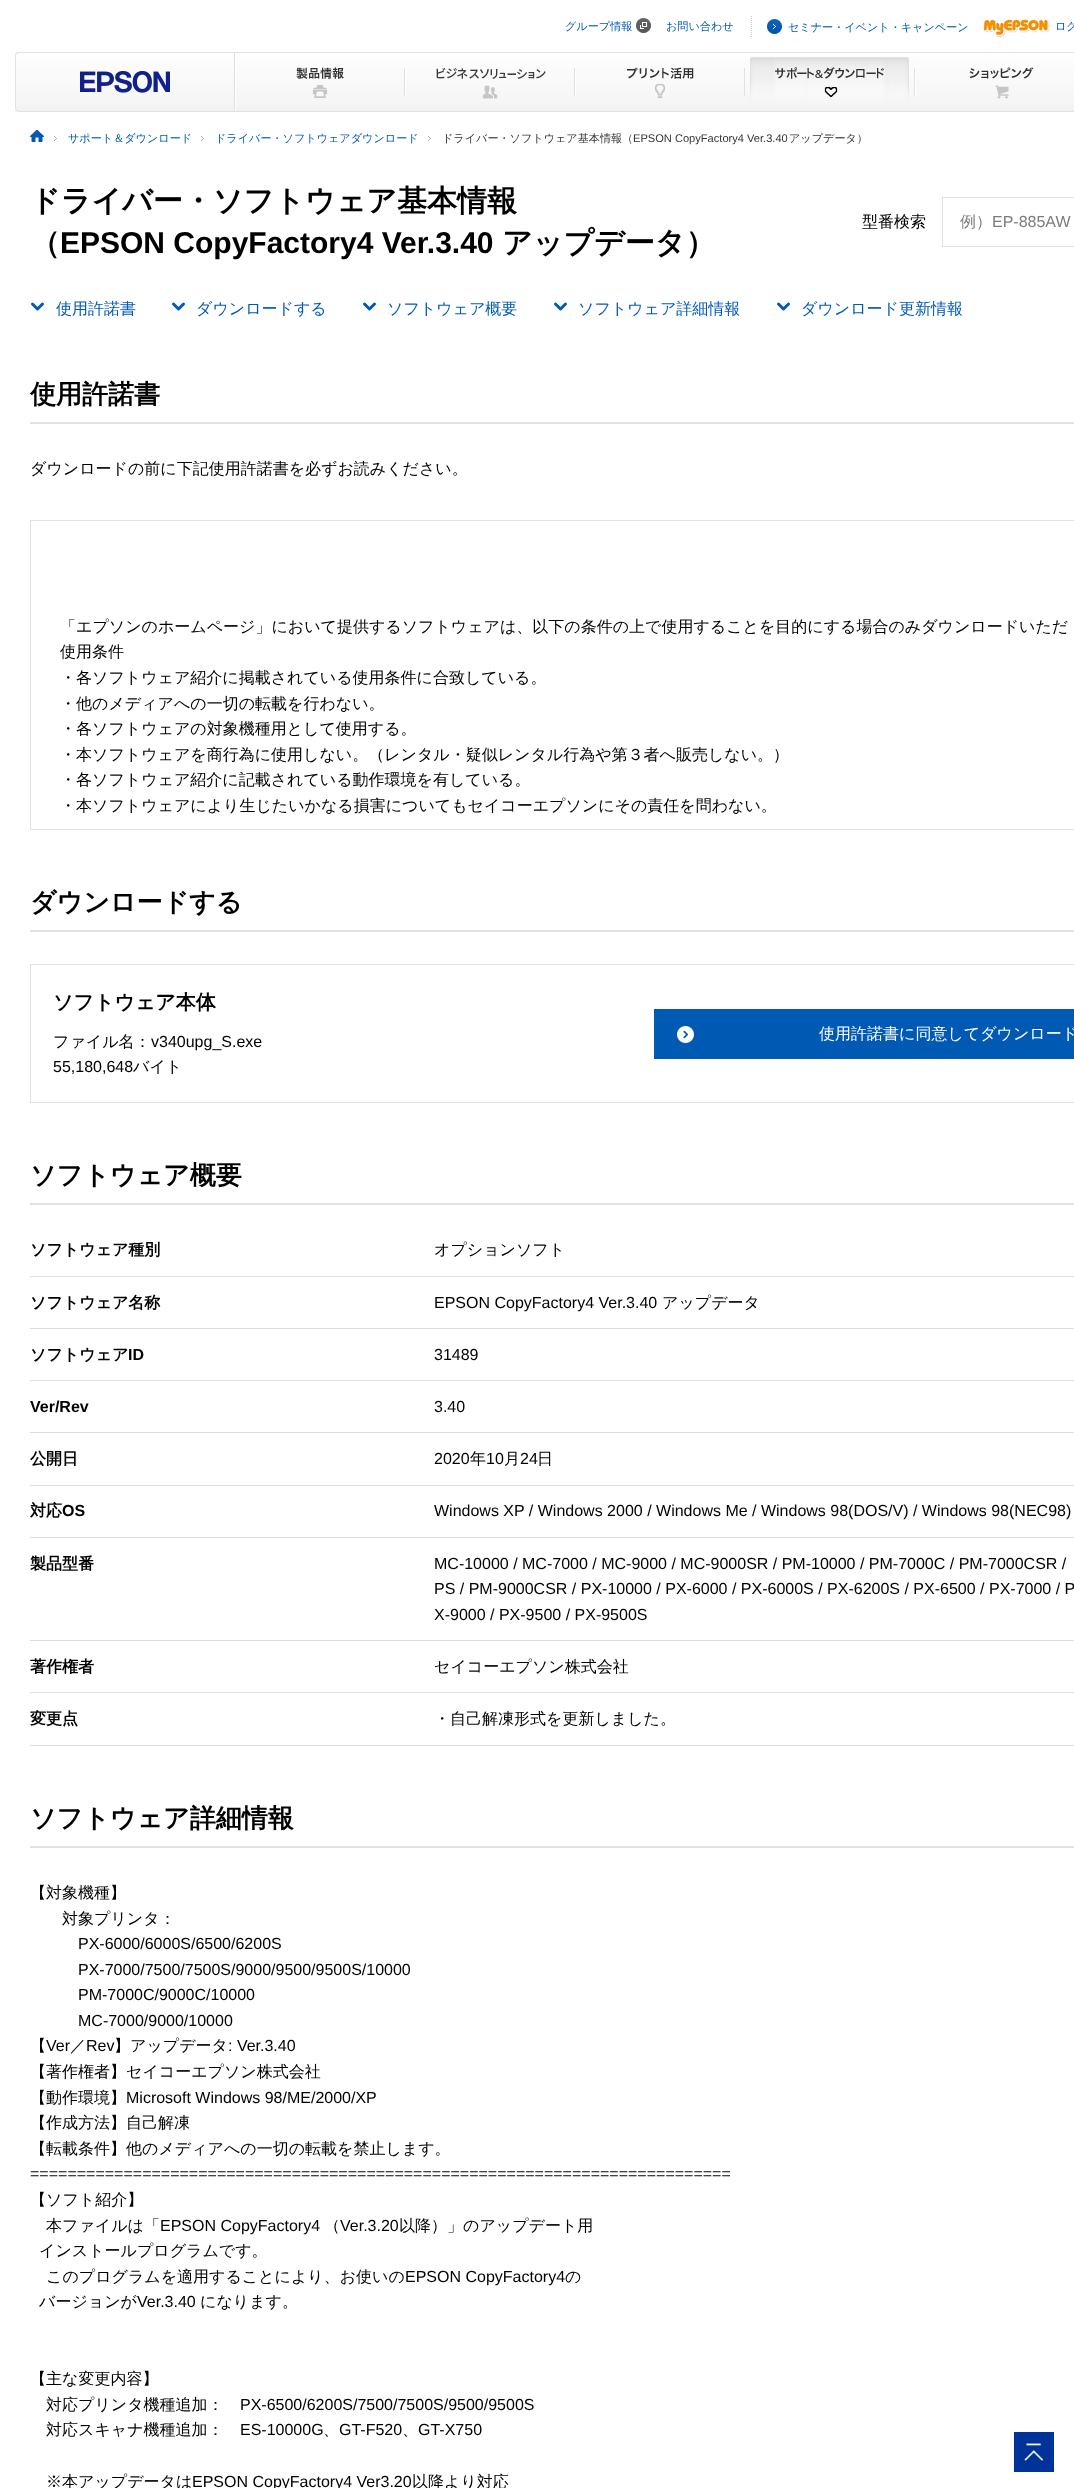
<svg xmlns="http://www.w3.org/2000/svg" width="1074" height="2488">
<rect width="100%" height="100%" fill="#fff"/>
<text x="565" y="30" style="font-family:WenQuanYi Zen Hei;font-size:11.1px;font-weight:500;fill:#005ab4">グループ情報</text>
<image x="636" y="18" width="15" height="15" href="media/1.png"/>
<text x="666" y="30" style="font-family:WenQuanYi Zen Hei;font-size:11.1px;font-weight:500;fill:#005ab4">お問い合わせ</text>
<image x="751" y="16" width="1" height="21" href="media/2.png"/>
<image x="767" y="19" width="15" height="15" href="media/3.png"/>
<text x="788" y="31" style="font-family:WenQuanYi Zen Hei;font-size:11.1px;font-weight:500;fill:#005ab4">セミナー・イベント・キャンペーン</text>
<image x="983" y="19" width="67" height="18" href="media/4.png"/>
<text x="1055" y="30" style="font-family:WenQuanYi Zen Hei;font-size:11.1px;font-weight:500;fill:#005ab4">ログ</text>
<image x="15" y="52" width="220" height="60" href="media/5.png"/>
<image x="235" y="52" width="170" height="60" href="media/6.png"/>
<image x="405" y="52" width="170" height="60" href="media/7.png"/>
<image x="575" y="52" width="170" height="60" href="media/8.png"/>
<image x="745" y="52" width="170" height="60" href="media/9.png"/>
<image x="915" y="52" width="159" height="60" href="media/10.png"/>
<image x="54" y="136" width="3" height="5" href="media/11.png"/>
<image x="30" y="130" width="14" height="12" href="media/12.png"/>
<image x="201" y="136" width="3" height="5" href="media/11.png"/>
<text x="68" y="142" style="font-family:WenQuanYi Zen Hei;font-size:11.1px;font-weight:500;fill:#005ab4">サポート＆ダウンロード</text>
<image x="428" y="136" width="3" height="5" href="media/11.png"/>
<text x="215" y="142" style="font-family:WenQuanYi Zen Hei;font-size:11.1px;font-weight:500;fill:#005ab4">ドライバー・ソフトウェアダウンロード</text>
<text x="442" y="142" style="font-family:WenQuanYi Zen Hei;font-size:11.1px;font-weight:500;fill:#333">ドライバー・ソフトウェア基本情報（</text>
<text x="633" y="142" style="font-family:Liberation Sans;font-size:11.1px;fill:#333">EPSON CopyFactory4 Ver.3.40</text>
<text x="789" y="142" style="font-family:WenQuanYi Zen Hei;font-size:11.1px;font-weight:500;fill:#333">アップデータ）</text>
<text x="30" y="211" style="font-family:WenQuanYi Zen Hei;font-size:30px;font-weight:bold;fill:#000">ドライバー・ソフトウェア基本情報</text>
<text x="30" y="253" style="font-family:WenQuanYi Zen Hei;font-size:30px;font-weight:bold;fill:#000">（</text>
<text x="60" y="253" style="font-family:Liberation Sans;font-size:30px;font-weight:bold;fill:#000">EPSON CopyFactory4 Ver.3.40</text>
<text x="502" y="253" style="font-family:WenQuanYi Zen Hei;font-size:30px;font-weight:bold;fill:#000">アップデータ）</text>
<rect x="942.5" y="197.5" width="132" height="49" fill="none" stroke="#e2e2e2"/>
<text x="862" y="227" style="font-family:WenQuanYi Zen Hei;font-size:16px;font-weight:500;fill:#000">型番検索</text>
<text x="960" y="227" style="font-family:WenQuanYi Zen Hei;font-size:16px;font-weight:500;fill:#7c7c7c">例）</text>
<text x="992" y="227" style="font-family:Liberation Sans;font-size:16px;fill:#7c7c7c">EP-885AW</text>
<path d="M42.5 304l-5 5l-5-5" fill="none" stroke="#005ab4" stroke-width="3" stroke-linecap="round" stroke-linejoin="round"/>
<text x="56" y="314" style="font-family:WenQuanYi Zen Hei;font-size:16px;font-weight:500;fill:#005ab4">使用許諾書</text>
<path d="M183.5 304l-5 5l-5-5" fill="none" stroke="#005ab4" stroke-width="3" stroke-linecap="round" stroke-linejoin="round"/>
<text x="196" y="314" style="font-family:WenQuanYi Zen Hei;font-size:16px;font-weight:500;fill:#005ab4">ダウンロードする</text>
<path d="M374.5 304l-5 5l-5-5" fill="none" stroke="#005ab4" stroke-width="3" stroke-linecap="round" stroke-linejoin="round"/>
<text x="387" y="314" style="font-family:WenQuanYi Zen Hei;font-size:16px;font-weight:500;fill:#005ab4">ソフトウェア概要</text>
<path d="M565.5 304l-5 5l-5-5" fill="none" stroke="#005ab4" stroke-width="3" stroke-linecap="round" stroke-linejoin="round"/>
<text x="578" y="314" style="font-family:WenQuanYi Zen Hei;font-size:16px;font-weight:500;fill:#005ab4">ソフトウェア詳細情報</text>
<path d="M788.5 304l-5 5l-5-5" fill="none" stroke="#005ab4" stroke-width="3" stroke-linecap="round" stroke-linejoin="round"/>
<text x="801" y="314" style="font-family:WenQuanYi Zen Hei;font-size:16px;font-weight:500;fill:#005ab4">ダウンロード更新情報</text>
<rect x="30" y="422" width="1044" height="2" fill="#e2e2e2"/>
<text x="30" y="403" style="font-family:WenQuanYi Zen Hei;font-size:26px;font-weight:bold;fill:#000">使用許諾書</text>
<text x="30" y="474" style="font-family:WenQuanYi Zen Hei;font-size:16px;font-weight:500;fill:#000">ダウンロードの前に下記使用許諾書を必ずお読みください。</text>
<rect x="30.5" y="520.5" width="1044" height="309" fill="none" stroke="#e2e2e2"/>
<text x="60" y="632" style="font-family:WenQuanYi Zen Hei;font-size:16px;font-weight:500;fill:#000">「エプソンのホームページ」において提供するソフトウェアは、以下の条件の上で使用することを目的にする場合のみダウンロードいただ</text>
<text x="60" y="657" style="font-family:WenQuanYi Zen Hei;font-size:16px;font-weight:500;fill:#000">使用条件</text>
<text x="60" y="683" style="font-family:WenQuanYi Zen Hei;font-size:16px;font-weight:500;fill:#000">・各ソフトウェア紹介に掲載されている使用条件に合致している。</text>
<text x="60" y="709" style="font-family:WenQuanYi Zen Hei;font-size:16px;font-weight:500;fill:#000">・他のメディアへの一切の転載を行わない。</text>
<text x="60" y="734" style="font-family:WenQuanYi Zen Hei;font-size:16px;font-weight:500;fill:#000">・各ソフトウェアの対象機種用として使用する。</text>
<text x="60" y="760" style="font-family:WenQuanYi Zen Hei;font-size:16px;font-weight:500;fill:#000">・本ソフトウェアを商行為に使用しない。（レンタル・疑似レンタル行為や第３者へ販売しない。）</text>
<text x="60" y="785" style="font-family:WenQuanYi Zen Hei;font-size:16px;font-weight:500;fill:#000">・各ソフトウェア紹介に記載されている動作環境を有している。</text>
<text x="60" y="811" style="font-family:WenQuanYi Zen Hei;font-size:16px;font-weight:500;fill:#000">・本ソフトウェアにより生じたいかなる損害についてもセイコーエプソンにその責任を問わない。</text>
<rect x="30" y="930" width="1044" height="2" fill="#e2e2e2"/>
<text x="30" y="911" style="font-family:WenQuanYi Zen Hei;font-size:26px;font-weight:bold;fill:#000">ダウンロードする</text>
<rect x="30.5" y="964.5" width="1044" height="138" fill="none" stroke="#e2e2e2"/>
<text x="53" y="1009" style="font-family:WenQuanYi Zen Hei;font-size:20px;font-weight:bold;fill:#000">ソフトウェア本体</text>
<text x="53" y="1047" style="font-family:WenQuanYi Zen Hei;font-size:16px;font-weight:500;fill:#000">ファイル名：</text>
<text x="151" y="1047" style="font-family:Liberation Sans;font-size:16px;fill:#000">v340upg_S.exe</text>
<text x="53" y="1072" style="font-family:Liberation Sans;font-size:16px;fill:#000">55,180,648</text>
<text x="133" y="1072" style="font-family:WenQuanYi Zen Hei;font-size:16px;font-weight:500;fill:#000">バイト</text>
<rect x="654" y="1009" width="420" height="50" fill="#005ab4"/>
<image x="677" y="1026" width="17" height="17" href="media/13.png"/>
<text x="819" y="1039" style="font-family:WenQuanYi Zen Hei;font-size:16px;font-weight:500;fill:#fff">使用許諾書に同意してダウンロード</text>
<rect x="30" y="1203" width="1044" height="2" fill="#e2e2e2"/>
<text x="30" y="1184" style="font-family:WenQuanYi Zen Hei;font-size:26px;font-weight:bold;fill:#000">ソフトウェア概要</text>
<rect x="30" y="1276" width="1044" height="1" fill="#ddd"/>
<text x="30" y="1255" style="font-family:WenQuanYi Zen Hei;font-size:16px;font-weight:bold;fill:#000">ソフトウェア種別</text>
<text x="434" y="1255" style="font-family:WenQuanYi Zen Hei;font-size:16px;font-weight:500;fill:#000">オプションソフト</text>
<rect x="30" y="1328" width="1044" height="1" fill="#ddd"/>
<text x="30" y="1308" style="font-family:WenQuanYi Zen Hei;font-size:16px;font-weight:bold;fill:#000">ソフトウェア名称</text>
<text x="434" y="1308" style="font-family:Liberation Sans;font-size:16px;fill:#000">EPSON CopyFactory4 Ver.3.40</text>
<text x="662" y="1308" style="font-family:WenQuanYi Zen Hei;font-size:16px;font-weight:500;fill:#000">アップデータ</text>
<rect x="30" y="1380" width="1044" height="1" fill="#ddd"/>
<text x="30" y="1360" style="font-family:WenQuanYi Zen Hei;font-size:16px;font-weight:bold;fill:#000">ソフトウェア</text>
<text x="128" y="1360" style="font-family:Liberation Sans;font-size:16px;font-weight:bold;fill:#000">ID</text>
<text x="434" y="1360" style="font-family:Liberation Sans;font-size:16px;fill:#000">31489</text>
<rect x="30" y="1432" width="1044" height="1" fill="#ddd"/>
<text x="30" y="1412" style="font-family:Liberation Sans;font-size:16px;font-weight:bold;fill:#000">Ver/Rev</text>
<text x="434" y="1412" style="font-family:Liberation Sans;font-size:16px;fill:#000">3.40</text>
<rect x="30" y="1485" width="1044" height="1" fill="#ddd"/>
<text x="30" y="1464" style="font-family:WenQuanYi Zen Hei;font-size:16px;font-weight:bold;fill:#000">公開日</text>
<text x="434" y="1464" style="font-family:Liberation Sans;font-size:16px;fill:#000">2020</text>
<text x="470" y="1464" style="font-family:WenQuanYi Zen Hei;font-size:16px;font-weight:500;fill:#000">年</text>
<text x="486" y="1464" style="font-family:Liberation Sans;font-size:16px;fill:#000">10</text>
<text x="504" y="1464" style="font-family:WenQuanYi Zen Hei;font-size:16px;font-weight:500;fill:#000">月</text>
<text x="520" y="1464" style="font-family:Liberation Sans;font-size:16px;fill:#000">24</text>
<text x="537" y="1464" style="font-family:WenQuanYi Zen Hei;font-size:16px;font-weight:500;fill:#000">日</text>
<rect x="30" y="1537" width="1044" height="1" fill="#ddd"/>
<text x="30" y="1516" style="font-family:WenQuanYi Zen Hei;font-size:16px;font-weight:bold;fill:#000">対応</text>
<text x="62" y="1516" style="font-family:Liberation Sans;font-size:16px;font-weight:bold;fill:#000">OS</text>
<text x="434" y="1516" style="font-family:Liberation Sans;font-size:16px;fill:#000">Windows XP / Windows 2000 / Windows Me / Windows 98(DOS/V) / Windows 98(NEC98)</text>
<rect x="30" y="1640" width="1044" height="1" fill="#ddd"/>
<text x="30" y="1569" style="font-family:WenQuanYi Zen Hei;font-size:16px;font-weight:bold;fill:#000">製品型番</text>
<text x="434" y="1569" style="font-family:Liberation Sans;font-size:16px;fill:#000">MC-10000 / MC-7000 / MC-9000 / MC-9000SR / PM-10000 / PM-7000C / PM-7000CSR /</text>
<text x="434" y="1594" style="font-family:Liberation Sans;font-size:16px;fill:#000">PS / PM-9000CSR / PX-10000 / PX-6000 / PX-6000S / PX-6200S / PX-6500 / PX-7000 / P</text>
<text x="434" y="1620" style="font-family:Liberation Sans;font-size:16px;fill:#000">X-9000 / PX-9500 / PX-9500S</text>
<rect x="30" y="1692" width="1044" height="1" fill="#ddd"/>
<text x="30" y="1672" style="font-family:WenQuanYi Zen Hei;font-size:16px;font-weight:bold;fill:#000">著作権者</text>
<text x="434" y="1672" style="font-family:WenQuanYi Zen Hei;font-size:16px;font-weight:500;fill:#000">セイコーエプソン株式会社</text>
<rect x="30" y="1745" width="1044" height="1" fill="#ddd"/>
<text x="30" y="1724" style="font-family:WenQuanYi Zen Hei;font-size:16px;font-weight:bold;fill:#000">変更点</text>
<text x="434" y="1724" style="font-family:WenQuanYi Zen Hei;font-size:16px;font-weight:500;fill:#000">・自己解凍形式を更新しました。</text>
<rect x="30" y="1846" width="1044" height="2" fill="#e2e2e2"/>
<text x="30" y="1827" style="font-family:WenQuanYi Zen Hei;font-size:26px;font-weight:bold;fill:#000">ソフトウェア詳細情報</text>
<text x="30" y="1898" style="font-family:WenQuanYi Zen Hei;font-size:16px;font-weight:500;fill:#000">【対象機種】</text>
<text x="62" y="1924" style="font-family:WenQuanYi Zen Hei;font-size:16px;font-weight:500;fill:#000">対象プリンタ：</text>
<text x="78" y="1949" style="font-family:Liberation Sans;font-size:16px;fill:#000">PX-6000/6000S/6500/6200S</text>
<text x="78" y="1975" style="font-family:Liberation Sans;font-size:16px;fill:#000">PX-7000/7500/7500S/9000/9500/9500S/10000</text>
<text x="78" y="2000" style="font-family:Liberation Sans;font-size:16px;fill:#000">PM-7000C/9000C/10000</text>
<text x="78" y="2026" style="font-family:Liberation Sans;font-size:16px;fill:#000">MC-7000/9000/10000</text>
<text x="30" y="2051" style="font-family:WenQuanYi Zen Hei;font-size:16px;font-weight:500;fill:#000">【</text>
<text x="46" y="2051" style="font-family:Liberation Sans;font-size:16px;fill:#000">Ver</text>
<text x="70" y="2051" style="font-family:WenQuanYi Zen Hei;font-size:16px;font-weight:500;fill:#000">／</text>
<text x="86" y="2051" style="font-family:Liberation Sans;font-size:16px;fill:#000">Rev</text>
<text x="114" y="2051" style="font-family:WenQuanYi Zen Hei;font-size:16px;font-weight:500;fill:#000">】アップデータ</text>
<text x="228" y="2051" style="font-family:Liberation Sans;font-size:16px;fill:#000">: Ver.3.40</text>
<text x="30" y="2077" style="font-family:WenQuanYi Zen Hei;font-size:16px;font-weight:500;fill:#000">【著作権者】セイコーエプソン株式会社</text>
<text x="30" y="2103" style="font-family:WenQuanYi Zen Hei;font-size:16px;font-weight:500;fill:#000">【動作環境】</text>
<text x="126" y="2103" style="font-family:Liberation Sans;font-size:16px;fill:#000">Microsoft Windows 98/ME/2000/XP</text>
<text x="30" y="2128" style="font-family:WenQuanYi Zen Hei;font-size:16px;font-weight:500;fill:#000">【作成方法】自己解凍</text>
<text x="30" y="2154" style="font-family:WenQuanYi Zen Hei;font-size:16px;font-weight:500;fill:#000">【転載条件】他のメディアへの一切の転載を禁止します。</text>
<text x="30" y="2179" style="font-family:Liberation Sans;font-size:16px;fill:#000">===========================================================================</text>
<text x="30" y="2205" style="font-family:WenQuanYi Zen Hei;font-size:16px;font-weight:500;fill:#000">【ソフト紹介】</text>
<text x="46" y="2231" style="font-family:WenQuanYi Zen Hei;font-size:16px;font-weight:500;fill:#000">本ファイルは「</text>
<text x="160" y="2231" style="font-family:Liberation Sans;font-size:16px;fill:#000">EPSON CopyFactory4</text>
<text x="324" y="2231" style="font-family:WenQuanYi Zen Hei;font-size:16px;font-weight:500;fill:#000">（</text>
<text x="340" y="2231" style="font-family:Liberation Sans;font-size:16px;fill:#000">Ver.3.20</text>
<text x="399" y="2231" style="font-family:WenQuanYi Zen Hei;font-size:16px;font-weight:500;fill:#000">以降）」のアップデート用</text>
<text x="39" y="2256" style="font-family:WenQuanYi Zen Hei;font-size:16px;font-weight:500;fill:#000">インストールプログラムです。</text>
<text x="46" y="2282" style="font-family:WenQuanYi Zen Hei;font-size:16px;font-weight:500;fill:#000">このプログラムを適用することにより、お使いの</text>
<text x="405" y="2282" style="font-family:Liberation Sans;font-size:16px;fill:#000">EPSON CopyFactory4</text>
<text x="565" y="2282" style="font-family:WenQuanYi Zen Hei;font-size:16px;font-weight:500;fill:#000">の</text>
<text x="39" y="2307" style="font-family:WenQuanYi Zen Hei;font-size:16px;font-weight:500;fill:#000">バージョンが</text>
<text x="137" y="2307" style="font-family:Liberation Sans;font-size:16px;fill:#000">Ver.3.40</text>
<text x="200" y="2307" style="font-family:WenQuanYi Zen Hei;font-size:16px;font-weight:500;fill:#000">になります。</text>
<text x="30" y="2384" style="font-family:WenQuanYi Zen Hei;font-size:16px;font-weight:500;fill:#000">【主な変更内容】</text>
<text x="46" y="2410" style="font-family:WenQuanYi Zen Hei;font-size:16px;font-weight:500;fill:#000">対応プリンタ機種追加：</text>
<text x="240" y="2410" style="font-family:Liberation Sans;font-size:16px;fill:#000">PX-6500/6200S/7500/7500S/9500/9500S</text>
<text x="46" y="2435" style="font-family:WenQuanYi Zen Hei;font-size:16px;font-weight:500;fill:#000">対応スキャナ機種追加：</text>
<text x="240" y="2435" style="font-family:Liberation Sans;font-size:16px;fill:#000">ES-10000G</text>
<text x="323" y="2435" style="font-family:WenQuanYi Zen Hei;font-size:16px;font-weight:500;fill:#000">、</text>
<text x="339" y="2435" style="font-family:Liberation Sans;font-size:16px;fill:#000">GT-F520</text>
<text x="402" y="2435" style="font-family:WenQuanYi Zen Hei;font-size:16px;font-weight:500;fill:#000">、</text>
<text x="418" y="2435" style="font-family:Liberation Sans;font-size:16px;fill:#000">GT-X750</text>
<text x="46" y="2487" style="font-family:WenQuanYi Zen Hei;font-size:16px;font-weight:500;fill:#000">※本アップデータは</text>
<text x="192" y="2487" style="font-family:Liberation Sans;font-size:16px;fill:#000">EPSON CopyFactory4 Ver3.20</text>
<text x="412" y="2487" style="font-family:WenQuanYi Zen Hei;font-size:16px;font-weight:500;fill:#000">以降より対応</text>
<image x="1014" y="2432" width="40" height="40" href="media/14.png"/>
</svg>
